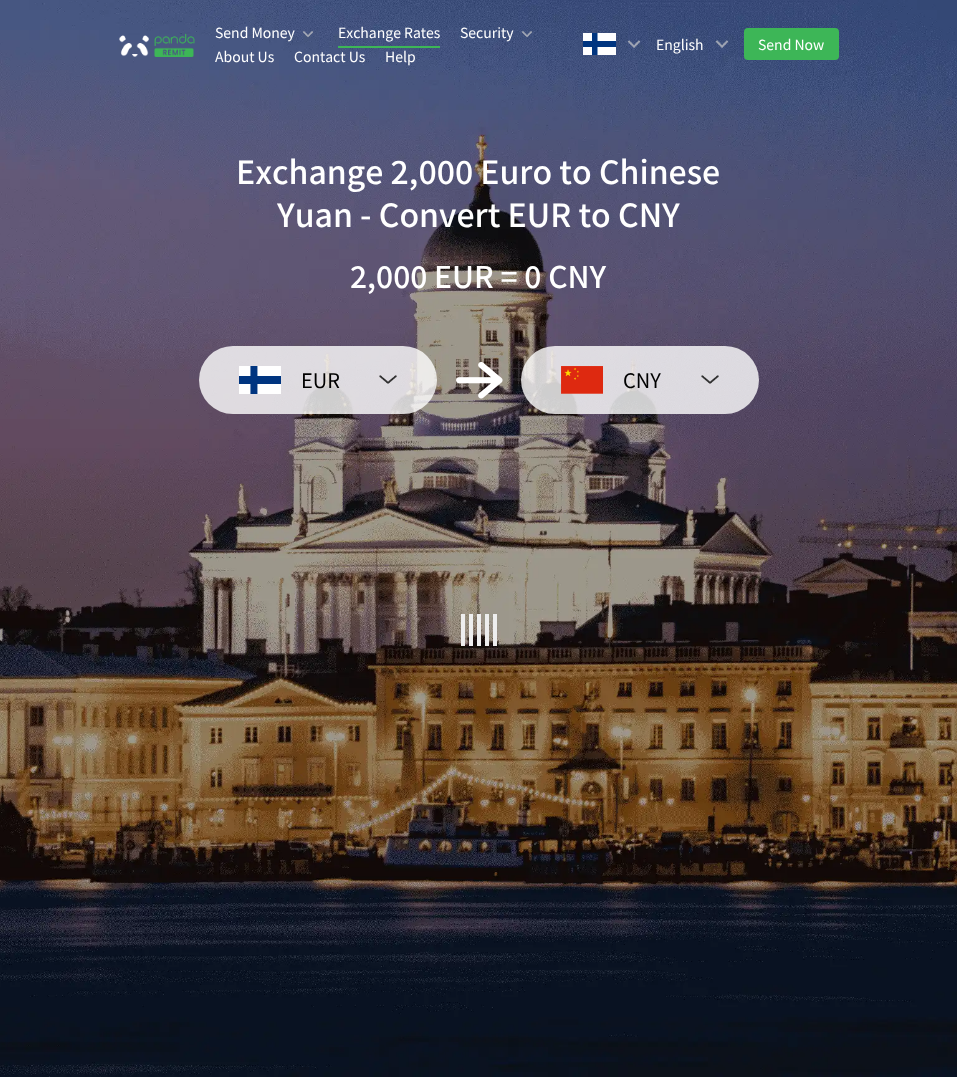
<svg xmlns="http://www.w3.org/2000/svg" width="957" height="1077">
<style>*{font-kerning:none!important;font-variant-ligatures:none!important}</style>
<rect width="100%" height="100%" fill="#fff"/>
<image x="0" y="0" width="957" height="1077" href="media/1.png"/>
<image x="119" y="33" width="76" height="24" href="media/2.png"/>
<text x="215" y="38" style="font-family:Noto Sans CJK SC;font-size:14px;fill:#fff">Send Money</text>
<image x="302" y="31" width="12" height="7" href="media/3.png"/>
<text x="338" y="38" style="font-family:Noto Sans CJK SC;font-size:14px;fill:#fff">Exchange Rates</text>
<rect x="338" y="46" width="102" height="2" fill="#3db657"/>
<text x="460" y="38" style="font-family:Noto Sans CJK SC;font-size:14px;fill:#fff">Security</text>
<image x="521" y="31" width="12" height="7" href="media/4.png"/>
<text x="215" y="62" style="font-family:Noto Sans CJK SC;font-size:14px;fill:#fff">About Us</text>
<text x="294" y="62" style="font-family:Noto Sans CJK SC;font-size:14px;fill:#fff">Contact Us</text>
<text x="385" y="62" style="font-family:Noto Sans CJK SC;font-size:14px;fill:#fff">Help</text>
<image x="583" y="33" width="33" height="22" href="media/5.png"/>
<image x="627" y="40" width="14" height="8" href="media/6.png"/>
<text x="656" y="50" style="font-family:Noto Sans CJK SC;font-size:14px;fill:#fff">English</text>
<image x="715" y="40" width="14" height="8" href="media/7.png"/>
<rect x="744" y="28" width="95" height="32" rx="4" fill="#3db657"/>
<text x="758" y="50" style="font-family:Noto Sans CJK SC;font-size:14px;fill:#fff">Send Now</text>
<text x="236" y="184" style="font-family:Noto Sans CJK SC;font-size:32px;font-weight:500;fill:#fff">Exchange 2,000 Euro to Chinese</text>
<text x="277" y="227" style="font-family:Noto Sans CJK SC;font-size:32px;font-weight:500;fill:#fff">Yuan - Convert EUR to CNY</text>
<text x="350" y="288" style="font-family:Noto Sans CJK SC;font-size:30px;font-weight:500;fill:#fff">2,000 EUR = 0 CNY</text>
<rect x="199" y="346" width="238" height="68" rx="34" fill="#ffffffcc"/>
<image x="239" y="366" width="42" height="28" href="media/8.png"/>
<text x="301" y="388" style="font-family:Noto Sans CJK SC;font-size:20px;fill:#000">EUR</text>
<image x="379" y="375" width="18" height="9" href="media/9.png"/>
<image x="456" y="362" width="47" height="37" href="media/10.png"/>
<rect x="521" y="346" width="238" height="68" rx="34" fill="#ffffffcc"/>
<image x="561" y="366" width="42" height="28" href="media/11.png"/>
<text x="623" y="388" style="font-family:Noto Sans CJK SC;font-size:20px;fill:#000">CNY</text>
<image x="701" y="375" width="18" height="9" href="media/12.png"/>
<rect x="461" y="614" width="4" height="32" fill="#eee"/>
<rect x="469" y="614" width="4" height="32" fill="#eee"/>
<rect x="477" y="614" width="4" height="32" fill="#eee"/>
<rect x="485" y="614" width="4" height="32" fill="#eee"/>
<rect x="493" y="614" width="4" height="32" fill="#eee"/>
</svg>
